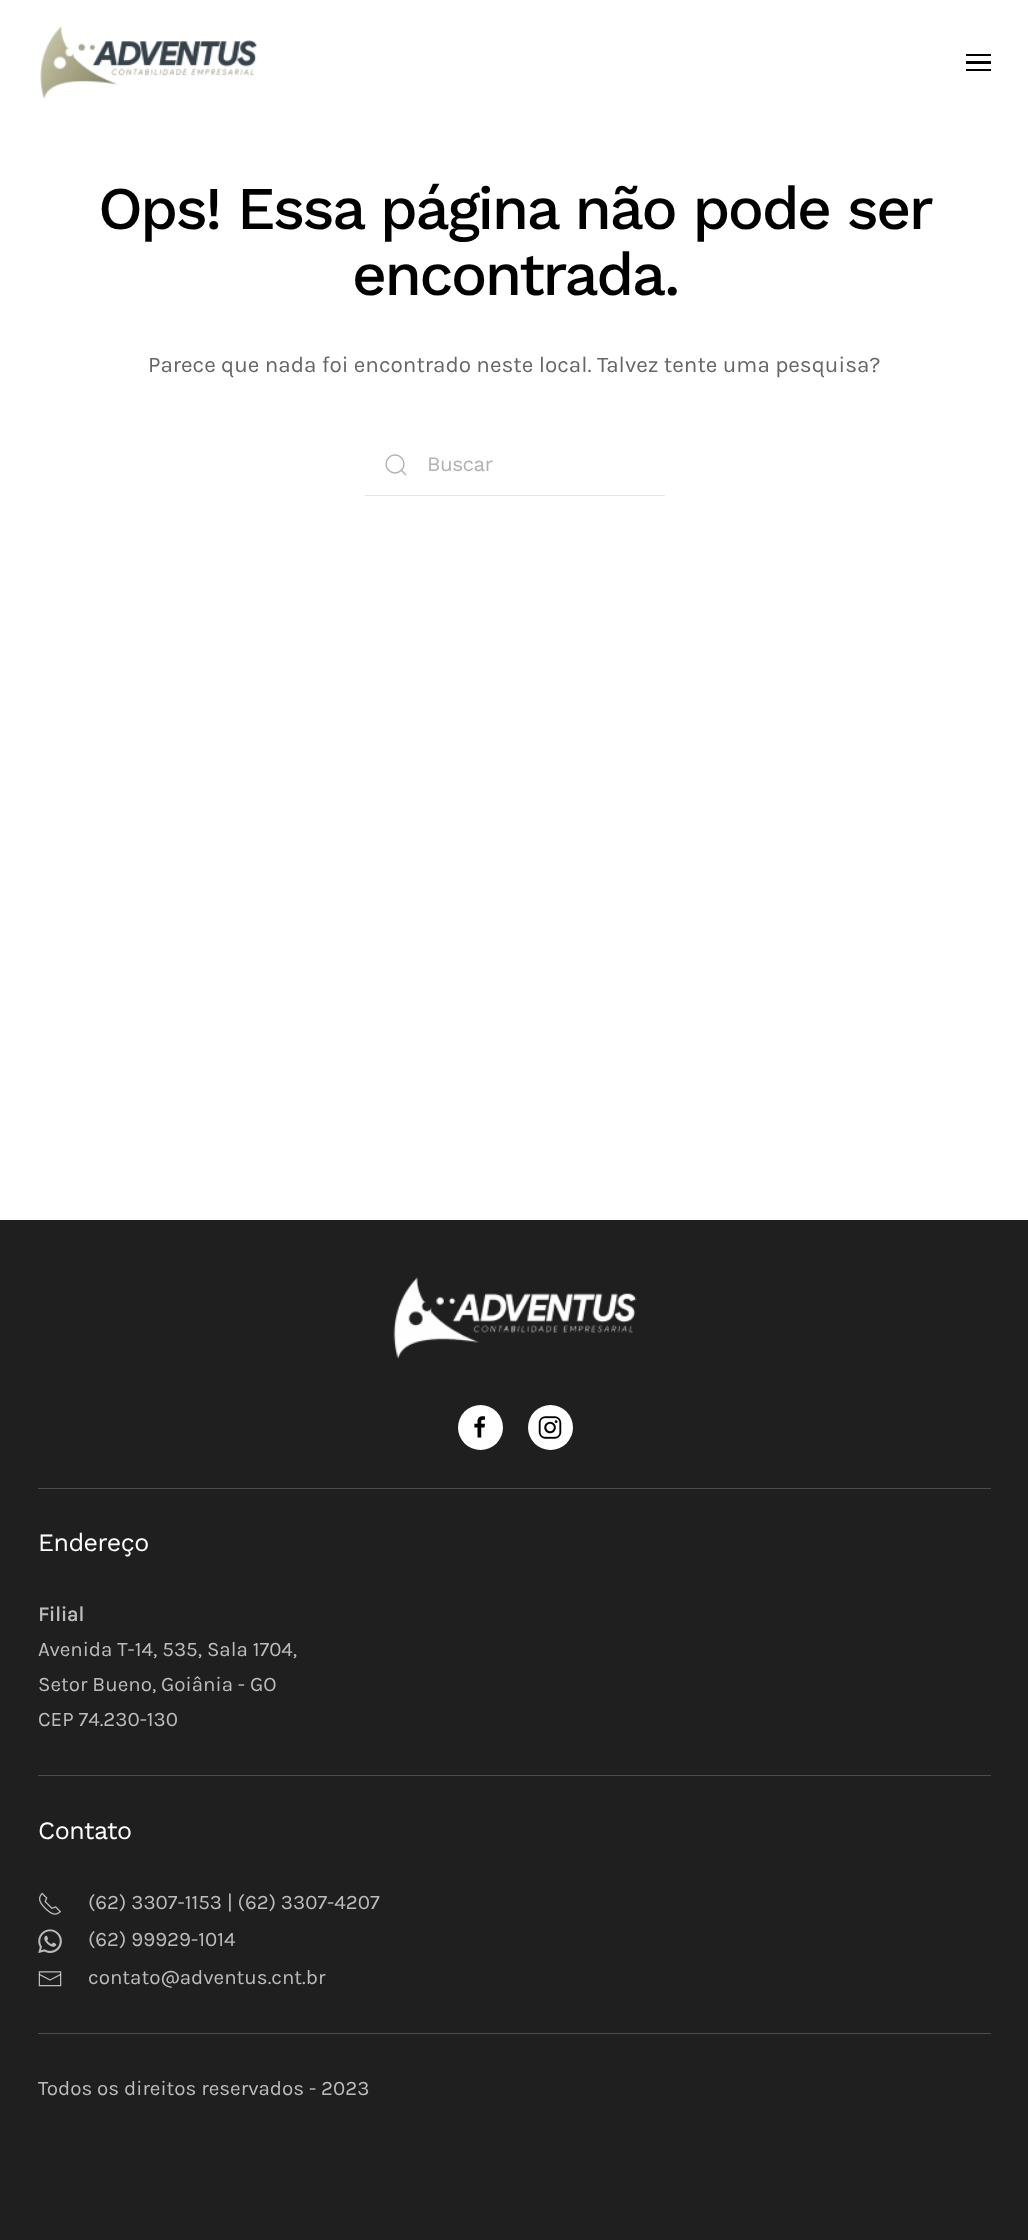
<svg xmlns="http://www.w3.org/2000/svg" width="1028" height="2240">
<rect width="100%" height="100%" fill="#fff"/>
<image x="40" y="26" width="217" height="73" href="media/1.png"/>
<rect x="966" y="54" width="25" height="2" fill="#000"/>
<rect x="966" y="61" width="25" height="3" fill="#000"/>
<rect x="966" y="69" width="25" height="2" fill="#000"/>
<text x="98" y="229" style="font-family:Work Sans;font-size:60.5px;font-weight:500;letter-spacing:-2.5px;fill:#000">Ops! Essa página não pode ser</text>
<text x="352" y="295" style="font-family:Work Sans;font-size:60.5px;font-weight:500;letter-spacing:-2.5px;fill:#000">encontrada.</text>
<text x="148" y="372" style="font-family:Karla;font-size:22.5px;fill:#666">Parece que nada foi encontrado neste local. Talvez tente uma pesquisa?</text>
<circle cx="395" cy="464" r="9" fill="none" stroke="#b2b2b2" stroke-width="1.4"/>
<path d="M401 470l5 5z" fill="none" stroke="#b2b2b2" stroke-width="1.4"/>
<rect x="365" y="495" width="300" height="1" fill="#e5e5e5"/>
<text x="427" y="471" style="font-family:Work Sans;font-size:20.6px;letter-spacing:-0.5px;fill:#b2b2b2">Buscar</text>
<rect y="1220" width="1028" height="1020" fill="#1f1f1f"/>
<image x="393" y="1277" width="244" height="82" href="media/2.png"/>
<circle cx="480.5" cy="1427.5" r="22.5" fill="#fff"/>
<image x="474" y="1416" width="11" height="22" href="media/3.png"/>
<circle cx="550.5" cy="1427.5" r="22.5" fill="#fff"/>
<image x="538" y="1416" width="24" height="23" href="media/4.png"/>
<rect x="38" y="1488" width="953" height="1" fill="#4c4c4c"/>
<text x="38" y="1551" style="font-family:Work Sans;font-size:25px;letter-spacing:-0.5px;fill:#fff">Endereço</text>
<text x="38" y="1621" style="font-family:Karla;font-size:20.6px;font-weight:bold;fill:#bcbcbc">Filial</text>
<text x="38" y="1656" style="font-family:Karla;font-size:20.6px;fill:#bcbcbc">Avenida T-14, 535, Sala 1704,</text>
<text x="38" y="1691" style="font-family:Karla;font-size:20.6px;fill:#bcbcbc">Setor Bueno, Goiânia - GO</text>
<text x="38" y="1726" style="font-family:Karla;font-size:20.6px;fill:#bcbcbc">CEP 74.230-130</text>
<rect x="38" y="1775" width="953" height="1" fill="#4c4c4c"/>
<text x="38" y="1839" style="font-family:Work Sans;font-size:25px;letter-spacing:-0.5px;fill:#fff">Contato</text>
<image x="39" y="1892" width="22" height="23" href="media/5.png"/>
<text x="88" y="1909" style="font-family:Karla;font-size:20.6px;fill:#bcbcbc">(62) 3307-1153 | (62) 3307-4207</text>
<image x="38" y="1929" width="24" height="24" href="media/6.png"/>
<text x="88" y="1946" style="font-family:Karla;font-size:20.6px;fill:#bcbcbc">(62) 99929-1014</text>
<image x="38" y="1971" width="24" height="16" href="media/7.png"/>
<text x="88" y="1984" style="font-family:Karla;font-size:20.6px;fill:#bcbcbc">contato@adventus.cnt.br</text>
<rect x="38" y="2033" width="953" height="1" fill="#4c4c4c"/>
<text x="38" y="2095" style="font-family:Karla;font-size:20.6px;fill:#bcbcbc">Todos os direitos reservados - 2023</text>
</svg>
